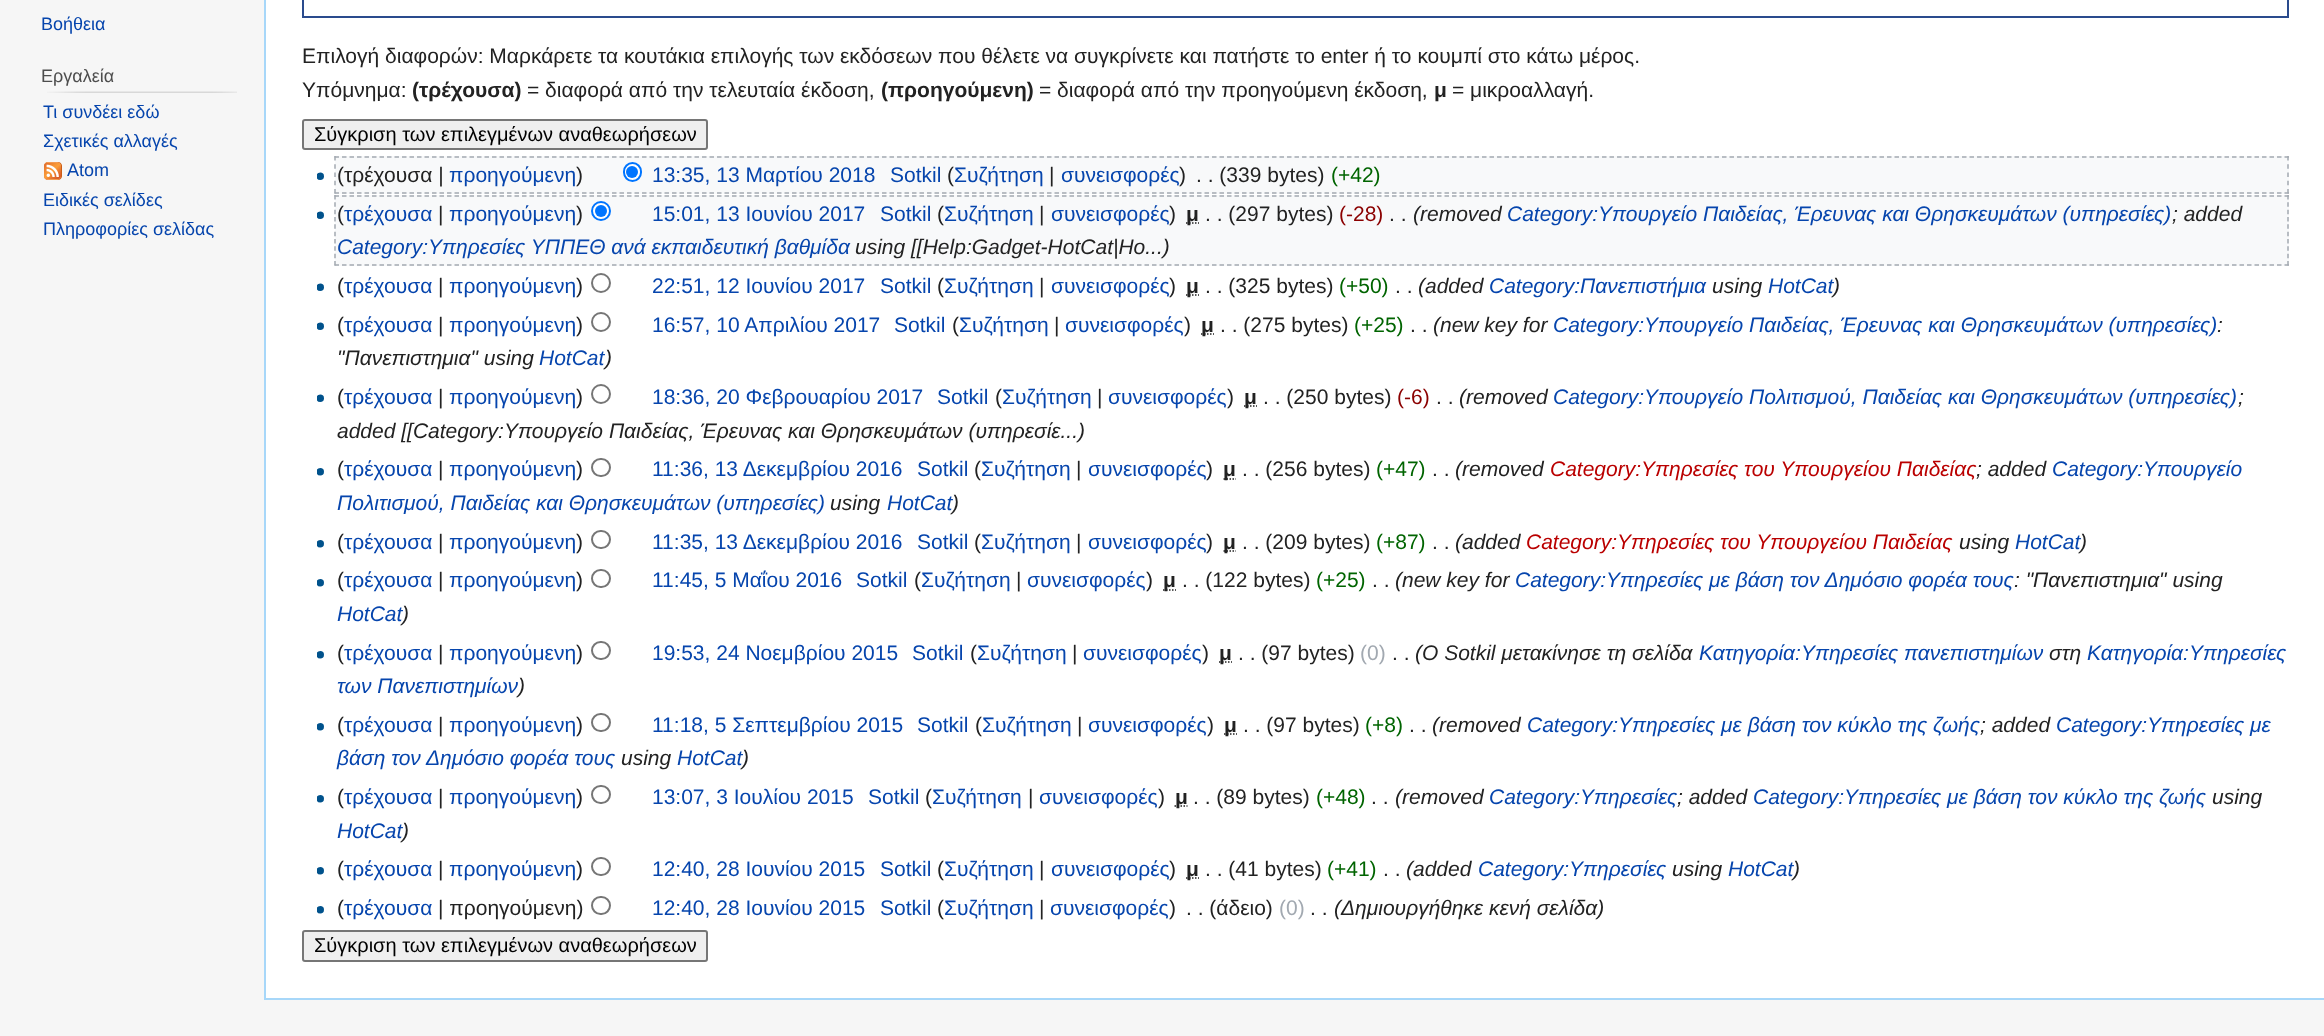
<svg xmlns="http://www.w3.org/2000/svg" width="2324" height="1036">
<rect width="100%" height="100%" fill="#f6f6f6"/>
<text x="41" y="30" style="font-family:Liberation Sans;font-size:18px;fill:#0645ad">Βοήθεια</text>
<text x="41" y="82" style="font-family:Liberation Sans;font-size:18px;fill:#4d4d4d">Εργαλεία</text>
<image x="47" y="91" width="190" height="2" href="media/1.png"/>
<text x="43" y="118" style="font-family:Liberation Sans;font-size:18px;fill:#0645ad">Τι συνδέει εδώ</text>
<text x="43" y="147" style="font-family:Liberation Sans;font-size:18px;fill:#0645ad">Σχετικές αλλαγές</text>
<image x="44" y="162" width="18" height="18" href="media/2.png"/>
<text x="67" y="176" style="font-family:Liberation Sans;font-size:18px;fill:#0645ad">Atom</text>
<text x="43" y="206" style="font-family:Liberation Sans;font-size:18px;fill:#0645ad">Ειδικές σελίδες</text>
<text x="43" y="235" style="font-family:Liberation Sans;font-size:18px;fill:#0645ad">Πληροφορίες σελίδας</text>
<rect x="266" width="2058" height="998" fill="#fff"/>
<rect x="264" y="998" width="2060" height="2" fill="#a7d7f9"/>
<rect x="264" width="2" height="999" fill="#a7d7f9"/>
<rect x="303" y="-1" width="1985" height="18" fill="none" stroke="#2a4b8d" stroke-width="2"/>
<text x="302" y="63" style="font-family:Liberation Sans;font-size:21px;fill:#222">Επιλογή διαφορών: Μαρκάρετε τα κουτάκια επιλογής των εκδόσεων που θέλετε να συγκρίνετε και πατήστε το enter ή το κουμπί στο κάτω μέρος.</text>
<text x="302" y="97" style="font-family:Liberation Sans;font-size:21px;fill:#222">Υπόμνημα:</text>
<text x="412" y="97" style="font-family:Liberation Sans;font-size:21px;font-weight:bold;fill:#222">(τρέχουσα)</text>
<text x="527" y="97" style="font-family:Liberation Sans;font-size:21px;fill:#222">= διαφορά από την τελευταία έκδοση,</text>
<text x="881" y="97" style="font-family:Liberation Sans;font-size:21px;font-weight:bold;fill:#222">(προηγούμενη)</text>
<text x="1039" y="97" style="font-family:Liberation Sans;font-size:21px;fill:#222">= διαφορά από την προηγούμενη έκδοση,</text>
<text x="1434" y="97" style="font-family:Liberation Sans;font-size:21px;font-weight:bold;fill:#222">μ</text>
<text x="1452" y="97" style="font-family:Liberation Sans;font-size:21px;fill:#222">= μικροαλλαγή.</text>
<rect x="303" y="120" width="404" height="29" rx="2" fill="#efefef" stroke="#767676" stroke-width="2"/>
<text x="314" y="141" style="font-family:Liberation Sans;font-size:20px;fill:#000">Σύγκριση των επιλεγμένων αναθεωρήσεων</text>
<rect x="335" y="156" width="1954" height="38" fill="#f8f9fa"/>
<path d="M334.5 157h1954.5" fill="none" stroke="#a2a9b1" stroke-width="1.5" stroke-dasharray="4.5 3"/>
<path d="M2288 156v37.5" fill="none" stroke="#a2a9b1" stroke-width="1.5" stroke-dasharray="4.5 3.75"/>
<path d="M334.5 193h1954.5" fill="none" stroke="#a2a9b1" stroke-width="1.5" stroke-dasharray="4.5 3"/>
<path d="M335 156v37.5" fill="none" stroke="#a2a9b1" stroke-width="1.5" stroke-dasharray="4.5 3.75"/>
<image x="317" y="172" width="7" height="8" href="media/3.png"/>
<text x="337" y="182" style="font-family:Liberation Sans;font-size:21px;fill:#222">(τρέχουσα |</text>
<text x="449" y="182" style="font-family:Liberation Sans;font-size:21px;fill:#0645ad">προηγούμενη</text>
<text x="576" y="182" style="font-family:Liberation Sans;font-size:21px;fill:#222">)</text>
<rect x="624" y="163" width="17" height="18" rx="8.5" fill="#fff" stroke="#0075ff" stroke-width="2"/>
<circle cx="632" cy="172" r="6" fill="#0075ff"/>
<text x="652" y="182" style="font-family:Liberation Sans;font-size:21px;fill:#0645ad">13:35, 13 Μαρτίου 2018</text>
<text x="890" y="182" style="font-family:Liberation Sans;font-size:21px;fill:#0645ad">Sotkil</text>
<text x="947" y="182" style="font-family:Liberation Sans;font-size:21px;fill:#222">(</text>
<text x="954" y="182" style="font-family:Liberation Sans;font-size:21px;fill:#0645ad">Συζήτηση</text>
<text x="1049" y="182" style="font-family:Liberation Sans;font-size:21px;fill:#222">|</text>
<text x="1061" y="182" style="font-family:Liberation Sans;font-size:21px;fill:#0645ad">συνεισφορές</text>
<text x="1179" y="182" style="font-family:Liberation Sans;font-size:21px;fill:#222">)</text>
<text x="1196" y="182" style="font-family:Liberation Sans;font-size:21px;fill:#222">. . (339 bytes)</text>
<text x="1331" y="182" style="font-family:Liberation Sans;font-size:21px;fill:#006400">(+42)</text>
<rect x="335" y="195" width="1954" height="71" fill="#f8f9fa"/>
<path d="M334.5 196h1954.5" fill="none" stroke="#a2a9b1" stroke-width="1.5" stroke-dasharray="4.5 3"/>
<path d="M2288 195v70.5" fill="none" stroke="#a2a9b1" stroke-width="1.5" stroke-dasharray="4.5 2.83"/>
<path d="M334.5 265h1954.5" fill="none" stroke="#a2a9b1" stroke-width="1.5" stroke-dasharray="4.5 3"/>
<path d="M335 195v70.5" fill="none" stroke="#a2a9b1" stroke-width="1.5" stroke-dasharray="4.5 2.83"/>
<image x="317" y="211" width="7" height="8" href="media/3.png"/>
<text x="337" y="221" style="font-family:Liberation Sans;font-size:21px;fill:#222">(</text>
<text x="344" y="221" style="font-family:Liberation Sans;font-size:21px;fill:#0645ad">τρέχουσα</text>
<text x="438" y="221" style="font-family:Liberation Sans;font-size:21px;fill:#222">|</text>
<text x="449" y="221" style="font-family:Liberation Sans;font-size:21px;fill:#0645ad">προηγούμενη</text>
<text x="576" y="221" style="font-family:Liberation Sans;font-size:21px;fill:#222">)</text>
<circle cx="601" cy="211" r="9" fill="#fff" stroke="#0075ff" stroke-width="2"/>
<circle cx="601" cy="211" r="6" fill="#0075ff"/>
<text x="652" y="221" style="font-family:Liberation Sans;font-size:21px;fill:#0645ad">15:01, 13 Ιουνίου 2017</text>
<text x="880" y="221" style="font-family:Liberation Sans;font-size:21px;fill:#0645ad">Sotkil</text>
<text x="937" y="221" style="font-family:Liberation Sans;font-size:21px;fill:#222">(</text>
<text x="944" y="221" style="font-family:Liberation Sans;font-size:21px;fill:#0645ad">Συζήτηση</text>
<text x="1039" y="221" style="font-family:Liberation Sans;font-size:21px;fill:#222">|</text>
<text x="1051" y="221" style="font-family:Liberation Sans;font-size:21px;fill:#0645ad">συνεισφορές</text>
<text x="1169" y="221" style="font-family:Liberation Sans;font-size:21px;fill:#222">)</text>
<path d="M1186 223h13" fill="none" stroke="#222" stroke-width="1.5" stroke-dasharray="1.5 1.5"/>
<text x="1186" y="221" style="font-family:Liberation Sans;font-size:21px;font-weight:bold;fill:#222">μ</text>
<text x="1205" y="221" style="font-family:Liberation Sans;font-size:21px;fill:#222">. . (297 bytes)</text>
<text x="1339" y="221" style="font-family:Liberation Sans;font-size:21px;fill:#8b0000">(-28)</text>
<text x="1389" y="221" style="font-family:Liberation Sans;font-size:21px;fill:#222">. .</text>
<text x="1413" y="221" style="font-family:Liberation Sans;font-size:21px;font-style:italic;fill:#222">(removed</text>
<text x="1507" y="221" style="font-family:Liberation Sans;font-size:21px;font-style:italic;fill:#0645ad">Category:Υπουργείο Παιδείας, Έρευνας και Θρησκευμάτων (υπηρεσίες)</text>
<text x="2172" y="221" style="font-family:Liberation Sans;font-size:21px;font-style:italic;fill:#222">; added</text>
<text x="337" y="254" style="font-family:Liberation Sans;font-size:21px;font-style:italic;fill:#0645ad">Category:Υπηρεσίες ΥΠΠΕΘ ανά εκπαιδευτική βαθμίδα</text>
<text x="855" y="254" style="font-family:Liberation Sans;font-size:21px;font-style:italic;fill:#222">using [[Help:Gadget-HotCat|Ho...)</text>
<image x="317" y="283" width="7" height="8" href="media/3.png"/>
<text x="337" y="293" style="font-family:Liberation Sans;font-size:21px;fill:#222">(</text>
<text x="344" y="293" style="font-family:Liberation Sans;font-size:21px;fill:#0645ad">τρέχουσα</text>
<text x="438" y="293" style="font-family:Liberation Sans;font-size:21px;fill:#222">|</text>
<text x="449" y="293" style="font-family:Liberation Sans;font-size:21px;fill:#0645ad">προηγούμενη</text>
<text x="576" y="293" style="font-family:Liberation Sans;font-size:21px;fill:#222">)</text>
<circle cx="601" cy="283" r="9" fill="none" stroke="#767676" stroke-width="2"/>
<text x="652" y="293" style="font-family:Liberation Sans;font-size:21px;fill:#0645ad">22:51, 12 Ιουνίου 2017</text>
<text x="880" y="293" style="font-family:Liberation Sans;font-size:21px;fill:#0645ad">Sotkil</text>
<text x="937" y="293" style="font-family:Liberation Sans;font-size:21px;fill:#222">(</text>
<text x="944" y="293" style="font-family:Liberation Sans;font-size:21px;fill:#0645ad">Συζήτηση</text>
<text x="1039" y="293" style="font-family:Liberation Sans;font-size:21px;fill:#222">|</text>
<text x="1051" y="293" style="font-family:Liberation Sans;font-size:21px;fill:#0645ad">συνεισφορές</text>
<text x="1169" y="293" style="font-family:Liberation Sans;font-size:21px;fill:#222">)</text>
<path d="M1186 295h13" fill="none" stroke="#222" stroke-width="1.5" stroke-dasharray="1.5 1.5"/>
<text x="1186" y="293" style="font-family:Liberation Sans;font-size:21px;font-weight:bold;fill:#222">μ</text>
<text x="1205" y="293" style="font-family:Liberation Sans;font-size:21px;fill:#222">. . (325 bytes)</text>
<text x="1339" y="293" style="font-family:Liberation Sans;font-size:21px;fill:#006400">(+50)</text>
<text x="1395" y="293" style="font-family:Liberation Sans;font-size:21px;fill:#222">. .</text>
<text x="1418" y="293" style="font-family:Liberation Sans;font-size:21px;font-style:italic;fill:#222">(added</text>
<text x="1489" y="293" style="font-family:Liberation Sans;font-size:21px;font-style:italic;fill:#0645ad">Category:Πανεπιστήμια</text>
<text x="1712" y="293" style="font-family:Liberation Sans;font-size:21px;font-style:italic;fill:#222">using</text>
<text x="1768" y="293" style="font-family:Liberation Sans;font-size:21px;font-style:italic;fill:#0645ad">HotCat</text>
<text x="1833" y="293" style="font-family:Liberation Sans;font-size:21px;font-style:italic;fill:#222">)</text>
<image x="317" y="322" width="7" height="8" href="media/3.png"/>
<text x="337" y="332" style="font-family:Liberation Sans;font-size:21px;fill:#222">(</text>
<text x="344" y="332" style="font-family:Liberation Sans;font-size:21px;fill:#0645ad">τρέχουσα</text>
<text x="438" y="332" style="font-family:Liberation Sans;font-size:21px;fill:#222">|</text>
<text x="449" y="332" style="font-family:Liberation Sans;font-size:21px;fill:#0645ad">προηγούμενη</text>
<text x="576" y="332" style="font-family:Liberation Sans;font-size:21px;fill:#222">)</text>
<circle cx="601" cy="322" r="9" fill="none" stroke="#767676" stroke-width="2"/>
<text x="652" y="332" style="font-family:Liberation Sans;font-size:21px;fill:#0645ad">16:57, 10 Απριλίου 2017</text>
<text x="894" y="332" style="font-family:Liberation Sans;font-size:21px;fill:#0645ad">Sotkil</text>
<text x="952" y="332" style="font-family:Liberation Sans;font-size:21px;fill:#222">(</text>
<text x="959" y="332" style="font-family:Liberation Sans;font-size:21px;fill:#0645ad">Συζήτηση</text>
<text x="1054" y="332" style="font-family:Liberation Sans;font-size:21px;fill:#222">|</text>
<text x="1065" y="332" style="font-family:Liberation Sans;font-size:21px;fill:#0645ad">συνεισφορές</text>
<text x="1184" y="332" style="font-family:Liberation Sans;font-size:21px;fill:#222">)</text>
<path d="M1201 334h13" fill="none" stroke="#222" stroke-width="1.5" stroke-dasharray="1.5 1.5"/>
<text x="1201" y="332" style="font-family:Liberation Sans;font-size:21px;font-weight:bold;fill:#222">μ</text>
<text x="1220" y="332" style="font-family:Liberation Sans;font-size:21px;fill:#222">. . (275 bytes)</text>
<text x="1354" y="332" style="font-family:Liberation Sans;font-size:21px;fill:#006400">(+25)</text>
<text x="1410" y="332" style="font-family:Liberation Sans;font-size:21px;fill:#222">. .</text>
<text x="1433" y="332" style="font-family:Liberation Sans;font-size:21px;font-style:italic;fill:#222">(new key for</text>
<text x="1553" y="332" style="font-family:Liberation Sans;font-size:21px;font-style:italic;fill:#0645ad">Category:Υπουργείο Παιδείας, Έρευνας και Θρησκευμάτων (υπηρεσίες)</text>
<text x="2217" y="332" style="font-family:Liberation Sans;font-size:21px;font-style:italic;fill:#222">:</text>
<text x="337" y="365" style="font-family:Liberation Sans;font-size:21px;font-style:italic;fill:#222">"Πανεπιστημια" using</text>
<text x="539" y="365" style="font-family:Liberation Sans;font-size:21px;font-style:italic;fill:#0645ad">HotCat</text>
<text x="605" y="365" style="font-family:Liberation Sans;font-size:21px;font-style:italic;fill:#222">)</text>
<image x="317" y="394" width="7" height="8" href="media/3.png"/>
<text x="337" y="404" style="font-family:Liberation Sans;font-size:21px;fill:#222">(</text>
<text x="344" y="404" style="font-family:Liberation Sans;font-size:21px;fill:#0645ad">τρέχουσα</text>
<text x="438" y="404" style="font-family:Liberation Sans;font-size:21px;fill:#222">|</text>
<text x="449" y="404" style="font-family:Liberation Sans;font-size:21px;fill:#0645ad">προηγούμενη</text>
<text x="576" y="404" style="font-family:Liberation Sans;font-size:21px;fill:#222">)</text>
<circle cx="601" cy="394" r="9" fill="none" stroke="#767676" stroke-width="2"/>
<text x="652" y="404" style="font-family:Liberation Sans;font-size:21px;fill:#0645ad">18:36, 20 Φεβρουαρίου 2017</text>
<text x="937" y="404" style="font-family:Liberation Sans;font-size:21px;fill:#0645ad">Sotkil</text>
<text x="995" y="404" style="font-family:Liberation Sans;font-size:21px;fill:#222">(</text>
<text x="1002" y="404" style="font-family:Liberation Sans;font-size:21px;fill:#0645ad">Συζήτηση</text>
<text x="1097" y="404" style="font-family:Liberation Sans;font-size:21px;fill:#222">|</text>
<text x="1108" y="404" style="font-family:Liberation Sans;font-size:21px;fill:#0645ad">συνεισφορές</text>
<text x="1227" y="404" style="font-family:Liberation Sans;font-size:21px;fill:#222">)</text>
<path d="M1244 406h13" fill="none" stroke="#222" stroke-width="1.5" stroke-dasharray="1.5 1.5"/>
<text x="1244" y="404" style="font-family:Liberation Sans;font-size:21px;font-weight:bold;fill:#222">μ</text>
<text x="1263" y="404" style="font-family:Liberation Sans;font-size:21px;fill:#222">. . (250 bytes)</text>
<text x="1397" y="404" style="font-family:Liberation Sans;font-size:21px;fill:#8b0000">(-6)</text>
<text x="1436" y="404" style="font-family:Liberation Sans;font-size:21px;fill:#222">. .</text>
<text x="1459" y="404" style="font-family:Liberation Sans;font-size:21px;font-style:italic;fill:#222">(removed</text>
<text x="1553" y="404" style="font-family:Liberation Sans;font-size:21px;font-style:italic;fill:#0645ad">Category:Υπουργείο Πολιτισμού, Παιδείας και Θρησκευμάτων (υπηρεσίες)</text>
<text x="2238" y="404" style="font-family:Liberation Sans;font-size:21px;font-style:italic;fill:#222">;</text>
<text x="337" y="438" style="font-family:Liberation Sans;font-size:21px;font-style:italic;fill:#222">added [[Category:Υπουργείο Παιδείας, Έρευνας και Θρησκευμάτων (υπηρεσίε...)</text>
<image x="317" y="468" width="7" height="8" href="media/4.png"/>
<text x="337" y="476" style="font-family:Liberation Sans;font-size:21px;fill:#222">(</text>
<text x="344" y="476" style="font-family:Liberation Sans;font-size:21px;fill:#0645ad">τρέχουσα</text>
<text x="438" y="476" style="font-family:Liberation Sans;font-size:21px;fill:#222">|</text>
<text x="449" y="476" style="font-family:Liberation Sans;font-size:21px;fill:#0645ad">προηγούμενη</text>
<text x="576" y="476" style="font-family:Liberation Sans;font-size:21px;fill:#222">)</text>
<rect x="592" y="459" width="18" height="17" rx="8.5" fill="none" stroke="#767676" stroke-width="2"/>
<text x="652" y="476" style="font-family:Liberation Sans;font-size:21px;fill:#0645ad">11:36, 13 Δεκεμβρίου 2016</text>
<text x="917" y="476" style="font-family:Liberation Sans;font-size:21px;fill:#0645ad">Sotkil</text>
<text x="974" y="476" style="font-family:Liberation Sans;font-size:21px;fill:#222">(</text>
<text x="981" y="476" style="font-family:Liberation Sans;font-size:21px;fill:#0645ad">Συζήτηση</text>
<text x="1076" y="476" style="font-family:Liberation Sans;font-size:21px;fill:#222">|</text>
<text x="1088" y="476" style="font-family:Liberation Sans;font-size:21px;fill:#0645ad">συνεισφορές</text>
<text x="1206" y="476" style="font-family:Liberation Sans;font-size:21px;fill:#222">)</text>
<path d="M1223.5 479h12.5" fill="none" stroke="#222" stroke-width="1.5" stroke-dasharray="1.5 1.5"/>
<text x="1223" y="476" style="font-family:Liberation Sans;font-size:21px;font-weight:bold;fill:#222">μ</text>
<text x="1242" y="476" style="font-family:Liberation Sans;font-size:21px;fill:#222">. . (256 bytes)</text>
<text x="1376" y="476" style="font-family:Liberation Sans;font-size:21px;fill:#006400">(+47)</text>
<text x="1432" y="476" style="font-family:Liberation Sans;font-size:21px;fill:#222">. .</text>
<text x="1455" y="476" style="font-family:Liberation Sans;font-size:21px;font-style:italic;fill:#222">(removed</text>
<text x="1550" y="476" style="font-family:Liberation Sans;font-size:21px;font-style:italic;fill:#ba0000">Category:Υπηρεσίες του Υπουργείου Παιδείας</text>
<text x="1976" y="476" style="font-family:Liberation Sans;font-size:21px;font-style:italic;fill:#222">; added</text>
<text x="2052" y="476" style="font-family:Liberation Sans;font-size:21px;font-style:italic;fill:#0645ad">Category:Υπουργείο</text>
<text x="337" y="510" style="font-family:Liberation Sans;font-size:21px;font-style:italic;fill:#0645ad">Πολιτισμού, Παιδείας και Θρησκευμάτων (υπηρεσίες)</text>
<text x="830" y="510" style="font-family:Liberation Sans;font-size:21px;font-style:italic;fill:#222">using</text>
<text x="887" y="510" style="font-family:Liberation Sans;font-size:21px;font-style:italic;fill:#0645ad">HotCat</text>
<text x="952" y="510" style="font-family:Liberation Sans;font-size:21px;font-style:italic;fill:#222">)</text>
<image x="317" y="540" width="7" height="8" href="media/4.png"/>
<text x="337" y="549" style="font-family:Liberation Sans;font-size:21px;fill:#222">(</text>
<text x="344" y="549" style="font-family:Liberation Sans;font-size:21px;fill:#0645ad">τρέχουσα</text>
<text x="438" y="549" style="font-family:Liberation Sans;font-size:21px;fill:#222">|</text>
<text x="449" y="549" style="font-family:Liberation Sans;font-size:21px;fill:#0645ad">προηγούμενη</text>
<text x="576" y="549" style="font-family:Liberation Sans;font-size:21px;fill:#222">)</text>
<rect x="592" y="531" width="18" height="17" rx="8.5" fill="none" stroke="#767676" stroke-width="2"/>
<text x="652" y="549" style="font-family:Liberation Sans;font-size:21px;fill:#0645ad">11:35, 13 Δεκεμβρίου 2016</text>
<text x="917" y="549" style="font-family:Liberation Sans;font-size:21px;fill:#0645ad">Sotkil</text>
<text x="974" y="549" style="font-family:Liberation Sans;font-size:21px;fill:#222">(</text>
<text x="981" y="549" style="font-family:Liberation Sans;font-size:21px;fill:#0645ad">Συζήτηση</text>
<text x="1076" y="549" style="font-family:Liberation Sans;font-size:21px;fill:#222">|</text>
<text x="1088" y="549" style="font-family:Liberation Sans;font-size:21px;fill:#0645ad">συνεισφορές</text>
<text x="1206" y="549" style="font-family:Liberation Sans;font-size:21px;fill:#222">)</text>
<path d="M1223.5 551h12.5" fill="none" stroke="#222" stroke-width="1.5" stroke-dasharray="1.5 1.5"/>
<text x="1223" y="549" style="font-family:Liberation Sans;font-size:21px;font-weight:bold;fill:#222">μ</text>
<text x="1242" y="549" style="font-family:Liberation Sans;font-size:21px;fill:#222">. . (209 bytes)</text>
<text x="1376" y="549" style="font-family:Liberation Sans;font-size:21px;fill:#006400">(+87)</text>
<text x="1432" y="549" style="font-family:Liberation Sans;font-size:21px;fill:#222">. .</text>
<text x="1455" y="549" style="font-family:Liberation Sans;font-size:21px;font-style:italic;fill:#222">(added</text>
<text x="1526" y="549" style="font-family:Liberation Sans;font-size:21px;font-style:italic;fill:#ba0000">Category:Υπηρεσίες του Υπουργείου Παιδείας</text>
<text x="1959" y="549" style="font-family:Liberation Sans;font-size:21px;font-style:italic;fill:#222">using</text>
<text x="2015" y="549" style="font-family:Liberation Sans;font-size:21px;font-style:italic;fill:#0645ad">HotCat</text>
<text x="2080" y="549" style="font-family:Liberation Sans;font-size:21px;font-style:italic;fill:#222">)</text>
<image x="317" y="579" width="7" height="8" href="media/4.png"/>
<text x="337" y="587" style="font-family:Liberation Sans;font-size:21px;fill:#222">(</text>
<text x="344" y="587" style="font-family:Liberation Sans;font-size:21px;fill:#0645ad">τρέχουσα</text>
<text x="438" y="587" style="font-family:Liberation Sans;font-size:21px;fill:#222">|</text>
<text x="449" y="587" style="font-family:Liberation Sans;font-size:21px;fill:#0645ad">προηγούμενη</text>
<text x="576" y="587" style="font-family:Liberation Sans;font-size:21px;fill:#222">)</text>
<rect x="592" y="570" width="18" height="17" rx="8.5" fill="none" stroke="#767676" stroke-width="2"/>
<text x="652" y="587" style="font-family:Liberation Sans;font-size:21px;fill:#0645ad">11:45, 5 Μαΐου 2016</text>
<text x="856" y="587" style="font-family:Liberation Sans;font-size:21px;fill:#0645ad">Sotkil</text>
<text x="914" y="587" style="font-family:Liberation Sans;font-size:21px;fill:#222">(</text>
<text x="921" y="587" style="font-family:Liberation Sans;font-size:21px;fill:#0645ad">Συζήτηση</text>
<text x="1016" y="587" style="font-family:Liberation Sans;font-size:21px;fill:#222">|</text>
<text x="1027" y="587" style="font-family:Liberation Sans;font-size:21px;fill:#0645ad">συνεισφορές</text>
<text x="1146" y="587" style="font-family:Liberation Sans;font-size:21px;fill:#222">)</text>
<path d="M1163 590h13" fill="none" stroke="#222" stroke-width="1.5" stroke-dasharray="1.5 1.5"/>
<text x="1163" y="587" style="font-family:Liberation Sans;font-size:21px;font-weight:bold;fill:#222">μ</text>
<text x="1182" y="587" style="font-family:Liberation Sans;font-size:21px;fill:#222">. . (122 bytes)</text>
<text x="1316" y="587" style="font-family:Liberation Sans;font-size:21px;fill:#006400">(+25)</text>
<text x="1372" y="587" style="font-family:Liberation Sans;font-size:21px;fill:#222">. .</text>
<text x="1395" y="587" style="font-family:Liberation Sans;font-size:21px;font-style:italic;fill:#222">(new key for</text>
<text x="1515" y="587" style="font-family:Liberation Sans;font-size:21px;font-style:italic;fill:#0645ad">Category:Υπηρεσίες με βάση τον Δημόσιο φορέα τους</text>
<text x="2014" y="587" style="font-family:Liberation Sans;font-size:21px;font-style:italic;fill:#222">: "Πανεπιστημια" using</text>
<text x="337" y="621" style="font-family:Liberation Sans;font-size:21px;font-style:italic;fill:#0645ad">HotCat</text>
<text x="402" y="621" style="font-family:Liberation Sans;font-size:21px;font-style:italic;fill:#222">)</text>
<image x="317" y="651" width="7" height="8" href="media/4.png"/>
<text x="337" y="660" style="font-family:Liberation Sans;font-size:21px;fill:#222">(</text>
<text x="344" y="660" style="font-family:Liberation Sans;font-size:21px;fill:#0645ad">τρέχουσα</text>
<text x="438" y="660" style="font-family:Liberation Sans;font-size:21px;fill:#222">|</text>
<text x="449" y="660" style="font-family:Liberation Sans;font-size:21px;fill:#0645ad">προηγούμενη</text>
<text x="576" y="660" style="font-family:Liberation Sans;font-size:21px;fill:#222">)</text>
<rect x="592" y="642" width="18" height="17" rx="8.5" fill="none" stroke="#767676" stroke-width="2"/>
<text x="652" y="660" style="font-family:Liberation Sans;font-size:21px;fill:#0645ad">19:53, 24 Νοεμβρίου 2015</text>
<text x="912" y="660" style="font-family:Liberation Sans;font-size:21px;fill:#0645ad">Sotkil</text>
<text x="970" y="660" style="font-family:Liberation Sans;font-size:21px;fill:#222">(</text>
<text x="977" y="660" style="font-family:Liberation Sans;font-size:21px;fill:#0645ad">Συζήτηση</text>
<text x="1072" y="660" style="font-family:Liberation Sans;font-size:21px;fill:#222">|</text>
<text x="1083" y="660" style="font-family:Liberation Sans;font-size:21px;fill:#0645ad">συνεισφορές</text>
<text x="1202" y="660" style="font-family:Liberation Sans;font-size:21px;fill:#222">)</text>
<path d="M1219 662h13" fill="none" stroke="#222" stroke-width="1.5" stroke-dasharray="1.5 1.5"/>
<text x="1219" y="660" style="font-family:Liberation Sans;font-size:21px;font-weight:bold;fill:#222">μ</text>
<text x="1238" y="660" style="font-family:Liberation Sans;font-size:21px;fill:#222">. . (97 bytes)</text>
<text x="1360" y="660" style="font-family:Liberation Sans;font-size:21px;fill:#a2a9b1">(0)</text>
<text x="1392" y="660" style="font-family:Liberation Sans;font-size:21px;fill:#222">. .</text>
<text x="1415" y="660" style="font-family:Liberation Sans;font-size:21px;font-style:italic;fill:#222">(Ο Sotkil μετακίνησε τη σελίδα</text>
<text x="1699" y="660" style="font-family:Liberation Sans;font-size:21px;font-style:italic;fill:#0645ad">Κατηγορία:Υπηρεσίες πανεπιστημίων</text>
<text x="2049" y="660" style="font-family:Liberation Sans;font-size:21px;font-style:italic;fill:#222">στη</text>
<text x="2087" y="660" style="font-family:Liberation Sans;font-size:21px;font-style:italic;fill:#0645ad">Κατηγορία:Υπηρεσίες</text>
<text x="337" y="693" style="font-family:Liberation Sans;font-size:21px;font-style:italic;fill:#0645ad">των Πανεπιστημίων</text>
<text x="518" y="693" style="font-family:Liberation Sans;font-size:21px;font-style:italic;fill:#222">)</text>
<image x="317" y="723" width="7" height="8" href="media/4.png"/>
<text x="337" y="732" style="font-family:Liberation Sans;font-size:21px;fill:#222">(</text>
<text x="344" y="732" style="font-family:Liberation Sans;font-size:21px;fill:#0645ad">τρέχουσα</text>
<text x="438" y="732" style="font-family:Liberation Sans;font-size:21px;fill:#222">|</text>
<text x="449" y="732" style="font-family:Liberation Sans;font-size:21px;fill:#0645ad">προηγούμενη</text>
<text x="576" y="732" style="font-family:Liberation Sans;font-size:21px;fill:#222">)</text>
<rect x="592" y="714" width="18" height="17" rx="8.5" fill="none" stroke="#767676" stroke-width="2"/>
<text x="652" y="732" style="font-family:Liberation Sans;font-size:21px;fill:#0645ad">11:18, 5 Σεπτεμβρίου 2015</text>
<text x="917" y="732" style="font-family:Liberation Sans;font-size:21px;fill:#0645ad">Sotkil</text>
<text x="975" y="732" style="font-family:Liberation Sans;font-size:21px;fill:#222">(</text>
<text x="982" y="732" style="font-family:Liberation Sans;font-size:21px;fill:#0645ad">Συζήτηση</text>
<text x="1077" y="732" style="font-family:Liberation Sans;font-size:21px;fill:#222">|</text>
<text x="1088" y="732" style="font-family:Liberation Sans;font-size:21px;fill:#0645ad">συνεισφορές</text>
<text x="1207" y="732" style="font-family:Liberation Sans;font-size:21px;fill:#222">)</text>
<path d="M1224 734h13" fill="none" stroke="#222" stroke-width="1.5" stroke-dasharray="1.5 1.5"/>
<text x="1224" y="732" style="font-family:Liberation Sans;font-size:21px;font-weight:bold;fill:#222">μ</text>
<text x="1243" y="732" style="font-family:Liberation Sans;font-size:21px;fill:#222">. . (97 bytes)</text>
<text x="1365" y="732" style="font-family:Liberation Sans;font-size:21px;fill:#006400">(+8)</text>
<text x="1409" y="732" style="font-family:Liberation Sans;font-size:21px;fill:#222">. .</text>
<text x="1432" y="732" style="font-family:Liberation Sans;font-size:21px;font-style:italic;fill:#222">(removed</text>
<text x="1527" y="732" style="font-family:Liberation Sans;font-size:21px;font-style:italic;fill:#0645ad">Category:Υπηρεσίες με βάση τον κύκλο της ζωής</text>
<text x="1980" y="732" style="font-family:Liberation Sans;font-size:21px;font-style:italic;fill:#222">; added</text>
<text x="2056" y="732" style="font-family:Liberation Sans;font-size:21px;font-style:italic;fill:#0645ad">Category:Υπηρεσίες με</text>
<text x="337" y="765" style="font-family:Liberation Sans;font-size:21px;font-style:italic;fill:#0645ad">βάση τον Δημόσιο φορέα τους</text>
<text x="621" y="765" style="font-family:Liberation Sans;font-size:21px;font-style:italic;fill:#222">using</text>
<text x="677" y="765" style="font-family:Liberation Sans;font-size:21px;font-style:italic;fill:#0645ad">HotCat</text>
<text x="742" y="765" style="font-family:Liberation Sans;font-size:21px;font-style:italic;fill:#222">)</text>
<image x="317" y="795" width="7" height="8" href="media/4.png"/>
<text x="337" y="804" style="font-family:Liberation Sans;font-size:21px;fill:#222">(</text>
<text x="344" y="804" style="font-family:Liberation Sans;font-size:21px;fill:#0645ad">τρέχουσα</text>
<text x="438" y="804" style="font-family:Liberation Sans;font-size:21px;fill:#222">|</text>
<text x="449" y="804" style="font-family:Liberation Sans;font-size:21px;fill:#0645ad">προηγούμενη</text>
<text x="576" y="804" style="font-family:Liberation Sans;font-size:21px;fill:#222">)</text>
<rect x="592" y="786" width="18" height="17" rx="8.5" fill="none" stroke="#767676" stroke-width="2"/>
<text x="652" y="804" style="font-family:Liberation Sans;font-size:21px;fill:#0645ad">13:07, 3 Ιουλίου 2015</text>
<text x="868" y="804" style="font-family:Liberation Sans;font-size:21px;fill:#0645ad">Sotkil</text>
<text x="925" y="804" style="font-family:Liberation Sans;font-size:21px;fill:#222">(</text>
<text x="932" y="804" style="font-family:Liberation Sans;font-size:21px;fill:#0645ad">Συζήτηση</text>
<text x="1028" y="804" style="font-family:Liberation Sans;font-size:21px;fill:#222">|</text>
<text x="1039" y="804" style="font-family:Liberation Sans;font-size:21px;fill:#0645ad">συνεισφορές</text>
<text x="1158" y="804" style="font-family:Liberation Sans;font-size:21px;fill:#222">)</text>
<path d="M1174.5 806h13" fill="none" stroke="#222" stroke-width="1.5" stroke-dasharray="1.5 1.5"/>
<text x="1175" y="804" style="font-family:Liberation Sans;font-size:21px;font-weight:bold;fill:#222">μ</text>
<text x="1193" y="804" style="font-family:Liberation Sans;font-size:21px;fill:#222">. . (89 bytes)</text>
<text x="1316" y="804" style="font-family:Liberation Sans;font-size:21px;fill:#006400">(+48)</text>
<text x="1371" y="804" style="font-family:Liberation Sans;font-size:21px;fill:#222">. .</text>
<text x="1395" y="804" style="font-family:Liberation Sans;font-size:21px;font-style:italic;fill:#222">(removed</text>
<text x="1489" y="804" style="font-family:Liberation Sans;font-size:21px;font-style:italic;fill:#0645ad">Category:Υπηρεσίες</text>
<text x="1677" y="804" style="font-family:Liberation Sans;font-size:21px;font-style:italic;fill:#222">; added</text>
<text x="1753" y="804" style="font-family:Liberation Sans;font-size:21px;font-style:italic;fill:#0645ad">Category:Υπηρεσίες με βάση τον κύκλο της ζωής</text>
<text x="2212" y="804" style="font-family:Liberation Sans;font-size:21px;font-style:italic;fill:#222">using</text>
<text x="337" y="838" style="font-family:Liberation Sans;font-size:21px;font-style:italic;fill:#0645ad">HotCat</text>
<text x="402" y="838" style="font-family:Liberation Sans;font-size:21px;font-style:italic;fill:#222">)</text>
<image x="317" y="867" width="7" height="8" href="media/4.png"/>
<text x="337" y="876" style="font-family:Liberation Sans;font-size:21px;fill:#222">(</text>
<text x="344" y="876" style="font-family:Liberation Sans;font-size:21px;fill:#0645ad">τρέχουσα</text>
<text x="438" y="876" style="font-family:Liberation Sans;font-size:21px;fill:#222">|</text>
<text x="449" y="876" style="font-family:Liberation Sans;font-size:21px;fill:#0645ad">προηγούμενη</text>
<text x="576" y="876" style="font-family:Liberation Sans;font-size:21px;fill:#222">)</text>
<rect x="592" y="858" width="18" height="17" rx="8.5" fill="none" stroke="#767676" stroke-width="2"/>
<text x="652" y="876" style="font-family:Liberation Sans;font-size:21px;fill:#0645ad">12:40, 28 Ιουνίου 2015</text>
<text x="880" y="876" style="font-family:Liberation Sans;font-size:21px;fill:#0645ad">Sotkil</text>
<text x="937" y="876" style="font-family:Liberation Sans;font-size:21px;fill:#222">(</text>
<text x="944" y="876" style="font-family:Liberation Sans;font-size:21px;fill:#0645ad">Συζήτηση</text>
<text x="1039" y="876" style="font-family:Liberation Sans;font-size:21px;fill:#222">|</text>
<text x="1051" y="876" style="font-family:Liberation Sans;font-size:21px;fill:#0645ad">συνεισφορές</text>
<text x="1169" y="876" style="font-family:Liberation Sans;font-size:21px;fill:#222">)</text>
<path d="M1186 878h13" fill="none" stroke="#222" stroke-width="1.5" stroke-dasharray="1.5 1.5"/>
<text x="1186" y="876" style="font-family:Liberation Sans;font-size:21px;font-weight:bold;fill:#222">μ</text>
<text x="1205" y="876" style="font-family:Liberation Sans;font-size:21px;fill:#222">. . (41 bytes)</text>
<text x="1327" y="876" style="font-family:Liberation Sans;font-size:21px;fill:#006400">(+41)</text>
<text x="1383" y="876" style="font-family:Liberation Sans;font-size:21px;fill:#222">. .</text>
<text x="1406" y="876" style="font-family:Liberation Sans;font-size:21px;font-style:italic;fill:#222">(added</text>
<text x="1478" y="876" style="font-family:Liberation Sans;font-size:21px;font-style:italic;fill:#0645ad">Category:Υπηρεσίες</text>
<text x="1672" y="876" style="font-family:Liberation Sans;font-size:21px;font-style:italic;fill:#222">using</text>
<text x="1728" y="876" style="font-family:Liberation Sans;font-size:21px;font-style:italic;fill:#0645ad">HotCat</text>
<text x="1793" y="876" style="font-family:Liberation Sans;font-size:21px;font-style:italic;fill:#222">)</text>
<image x="317" y="906" width="7" height="8" href="media/4.png"/>
<text x="337" y="915" style="font-family:Liberation Sans;font-size:21px;fill:#222">(</text>
<text x="344" y="915" style="font-family:Liberation Sans;font-size:21px;fill:#0645ad">τρέχουσα</text>
<text x="438" y="915" style="font-family:Liberation Sans;font-size:21px;fill:#222">| προηγούμενη)</text>
<rect x="592" y="897" width="18" height="17" rx="8.5" fill="none" stroke="#767676" stroke-width="2"/>
<text x="652" y="915" style="font-family:Liberation Sans;font-size:21px;fill:#0645ad">12:40, 28 Ιουνίου 2015</text>
<text x="880" y="915" style="font-family:Liberation Sans;font-size:21px;fill:#0645ad">Sotkil</text>
<text x="937" y="915" style="font-family:Liberation Sans;font-size:21px;fill:#222">(</text>
<text x="944" y="915" style="font-family:Liberation Sans;font-size:21px;fill:#0645ad">Συζήτηση</text>
<text x="1039" y="915" style="font-family:Liberation Sans;font-size:21px;fill:#222">|</text>
<text x="1050" y="915" style="font-family:Liberation Sans;font-size:21px;fill:#0645ad">συνεισφορές</text>
<text x="1169" y="915" style="font-family:Liberation Sans;font-size:21px;fill:#222">)</text>
<text x="1186" y="915" style="font-family:Liberation Sans;font-size:21px;fill:#222">. . (άδειο)</text>
<text x="1279" y="915" style="font-family:Liberation Sans;font-size:21px;fill:#a2a9b1">(0)</text>
<text x="1310" y="915" style="font-family:Liberation Sans;font-size:21px;fill:#222">. .</text>
<text x="1334" y="915" style="font-family:Liberation Sans;font-size:21px;font-style:italic;fill:#222">(Δημιουργήθηκε κενή σελίδα)</text>
<rect x="303" y="931" width="404" height="30" rx="2" fill="#efefef" stroke="#767676" stroke-width="2"/>
<text x="314" y="952" style="font-family:Liberation Sans;font-size:20px;fill:#000">Σύγκριση των επιλεγμένων αναθεωρήσεων</text>
</svg>
